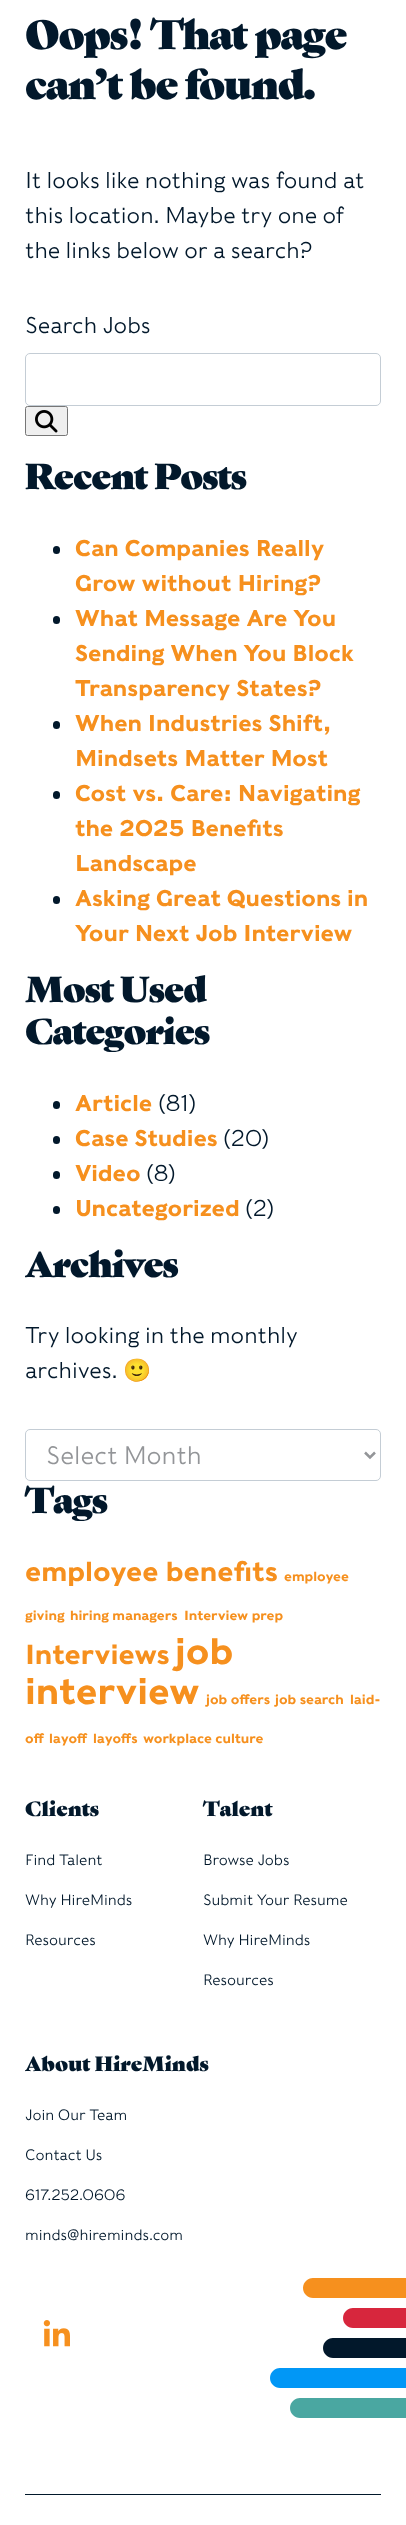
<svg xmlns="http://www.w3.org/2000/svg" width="406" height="2525">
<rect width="100%" height="100%" fill="#fff"/>
<text x="25" y="49" style="font-family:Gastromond;font-size:40px;letter-spacing:-1.25px;fill:#02182b">Oops! That page</text>
<text x="25" y="99" style="font-family:Gastromond;font-size:40px;letter-spacing:-1.25px;fill:#02182b">can’t be found.</text>
<text x="25" y="188" style="font-family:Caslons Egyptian;font-size:22.5px;font-weight:300;fill:#02182b">It looks like nothing was found at</text>
<text x="25" y="223" style="font-family:Caslons Egyptian;font-size:22.5px;font-weight:300;fill:#02182b">this location. Maybe try one of</text>
<text x="25" y="258" style="font-family:Caslons Egyptian;font-size:22.5px;font-weight:300;fill:#02182b">the links below or a search?</text>
<text x="25" y="333" style="font-family:Caslons Egyptian;font-size:22.5px;font-weight:300;fill:#02182b">Search Jobs</text>
<rect x="25.5" y="353.5" width="355" height="52" rx="4.5" fill="none" stroke="#c4cdd5"/>
<rect x="25.5" y="406.5" width="42" height="29" rx="2" fill="#efefef" stroke="#767676"/>
<image x="35" y="410" width="23" height="23" href="media/1.png"/>
<text x="25" y="489" style="font-family:Gastromond;font-size:35px;letter-spacing:-1px;fill:#02182b">Recent Posts</text>
<rect x="53" y="546" width="7" height="8" rx="3.5" fill="#02182b"/>
<text x="75" y="556" style="font-family:Caslons Egyptian;font-size:22.5px;font-weight:500;fill:#f6901e">Can Companies Really</text>
<text x="75" y="591" style="font-family:Caslons Egyptian;font-size:22.5px;font-weight:500;fill:#f6901e">Grow without Hiring?</text>
<rect x="53" y="616" width="7" height="8" rx="3.5" fill="#02182b"/>
<text x="75" y="626" style="font-family:Caslons Egyptian;font-size:22.5px;font-weight:500;fill:#f6901e">What Message Are You</text>
<text x="75" y="661" style="font-family:Caslons Egyptian;font-size:22.5px;font-weight:500;fill:#f6901e">Sending When You Block</text>
<text x="75" y="696" style="font-family:Caslons Egyptian;font-size:22.5px;font-weight:500;fill:#f6901e">Transparency States?</text>
<rect x="53" y="721" width="7" height="8" rx="3.5" fill="#02182b"/>
<text x="75" y="731" style="font-family:Caslons Egyptian;font-size:22.5px;font-weight:500;fill:#f6901e">When Industries Shift,</text>
<text x="75" y="766" style="font-family:Caslons Egyptian;font-size:22.5px;font-weight:500;fill:#f6901e">Mindsets Matter Most</text>
<rect x="53" y="791" width="7" height="8" rx="3.5" fill="#02182b"/>
<text x="75" y="801" style="font-family:Caslons Egyptian;font-size:22.5px;font-weight:500;fill:#f6901e">Cost vs. Care: Navigating</text>
<text x="75" y="836" style="font-family:Caslons Egyptian;font-size:22.5px;font-weight:500;fill:#f6901e">the 2025 Benefits</text>
<text x="75" y="871" style="font-family:Caslons Egyptian;font-size:22.5px;font-weight:500;fill:#f6901e">Landscape</text>
<rect x="53" y="896" width="7" height="8" rx="3.5" fill="#02182b"/>
<text x="75" y="906" style="font-family:Caslons Egyptian;font-size:22.5px;font-weight:500;fill:#f6901e">Asking Great Questions in</text>
<text x="75" y="941" style="font-family:Caslons Egyptian;font-size:22.5px;font-weight:500;fill:#f6901e">Your Next Job Interview</text>
<text x="25" y="1002" style="font-family:Gastromond;font-size:35px;letter-spacing:-1px;fill:#02182b">Most Used</text>
<text x="25" y="1044" style="font-family:Gastromond;font-size:35px;letter-spacing:-1px;fill:#02182b">Categories</text>
<rect x="53" y="1101" width="7" height="8" rx="3.5" fill="#02182b"/>
<text x="75" y="1111" style="font-family:Caslons Egyptian;font-size:22.5px;font-weight:500;fill:#f6901e">Article</text>
<text x="158" y="1111" style="font-family:Caslons Egyptian;font-size:22.5px;font-weight:300;fill:#02182b">(81)</text>
<rect x="53" y="1136" width="7" height="8" rx="3.5" fill="#02182b"/>
<text x="75" y="1146" style="font-family:Caslons Egyptian;font-size:22.5px;font-weight:500;fill:#f6901e">Case Studies</text>
<text x="223" y="1146" style="font-family:Caslons Egyptian;font-size:22.5px;font-weight:300;fill:#02182b">(20)</text>
<rect x="53" y="1171" width="7" height="8" rx="3.5" fill="#02182b"/>
<text x="75" y="1181" style="font-family:Caslons Egyptian;font-size:22.5px;font-weight:500;fill:#f6901e">Video</text>
<text x="146" y="1181" style="font-family:Caslons Egyptian;font-size:22.5px;font-weight:300;fill:#02182b">(8)</text>
<rect x="53" y="1206" width="7" height="8" rx="3.5" fill="#02182b"/>
<text x="75" y="1216" style="font-family:Caslons Egyptian;font-size:22.5px;font-weight:500;fill:#f6901e">Uncategorized</text>
<text x="245" y="1216" style="font-family:Caslons Egyptian;font-size:22.5px;font-weight:300;fill:#02182b">(2)</text>
<text x="25" y="1277" style="font-family:Gastromond;font-size:35px;letter-spacing:-1px;fill:#02182b">Archives</text>
<text x="25" y="1343" style="font-family:Caslons Egyptian;font-size:22.5px;font-weight:300;fill:#02182b">Try looking in the monthly</text>
<text x="25" y="1378" style="font-family:Caslons Egyptian;font-size:22.5px;font-weight:300;fill:#02182b">archives.</text>
<text x="123" y="1378" style="font-family:Noto Color Emoji;font-size:22.5px;fill:#02182b">🙂</text>
<rect x="25.5" y="1429.5" width="355" height="51" rx="4.5" fill="none" stroke="#c4cdd5"/>
<path d="M365 1452.5l5 5l5-5" fill="none" stroke="#939598" stroke-width="2.5"/>
<text x="46" y="1464" style="font-family:Caslons Egyptian;font-size:25px;font-weight:300;fill:#939598">Select Month</text>
<text x="25" y="1513" style="font-family:Gastromond;font-size:35px;letter-spacing:-1px;fill:#02182b">Tags</text>
<text x="25" y="1581" style="font-family:Caslons Egyptian;font-size:27.25px;font-weight:500;fill:#f6901e">employee benefits</text>
<text x="284" y="1581" style="font-family:Caslons Egyptian;font-size:13.25px;font-weight:500;fill:#f6901e">employee</text>
<text x="25" y="1620" style="font-family:Caslons Egyptian;font-size:13.25px;font-weight:500;fill:#f6901e">giving</text>
<text x="70" y="1620" style="font-family:Caslons Egyptian;font-size:13.25px;font-weight:500;fill:#f6901e">hiring managers</text>
<text x="184" y="1620" style="font-family:Caslons Egyptian;font-size:13.25px;font-weight:500;fill:#f6901e">Interview prep</text>
<text x="25" y="1664" style="font-family:Caslons Egyptian;font-size:27.25px;font-weight:500;fill:#f6901e">Interviews</text>
<text x="175" y="1664" style="font-family:Caslons Egyptian;font-size:36.5px;font-weight:500;fill:#f6901e">job</text>
<text x="25" y="1704" style="font-family:Caslons Egyptian;font-size:36.5px;font-weight:500;fill:#f6901e">interview</text>
<text x="206" y="1704" style="font-family:Caslons Egyptian;font-size:13.25px;font-weight:500;fill:#f6901e">job offers</text>
<text x="275" y="1704" style="font-family:Caslons Egyptian;font-size:13.25px;font-weight:500;fill:#f6901e">job search</text>
<text x="350" y="1704" style="font-family:Caslons Egyptian;font-size:13.25px;font-weight:500;fill:#f6901e">laid-</text>
<text x="25" y="1743" style="font-family:Caslons Egyptian;font-size:13.25px;font-weight:500;fill:#f6901e">off</text>
<text x="49" y="1743" style="font-family:Caslons Egyptian;font-size:13.25px;font-weight:500;fill:#f6901e">layoff</text>
<text x="93" y="1743" style="font-family:Caslons Egyptian;font-size:13.25px;font-weight:500;fill:#f6901e">layoffs</text>
<text x="143" y="1743" style="font-family:Caslons Egyptian;font-size:13.25px;font-weight:500;fill:#f6901e">workplace culture</text>
<text x="25" y="1816" style="font-family:Gastromond;font-size:20px;fill:#02182b">Clients</text>
<text x="25" y="1865" style="font-family:Caslons Egyptian;font-size:15px;font-weight:300;fill:#02182b">Find Talent</text>
<text x="25" y="1905" style="font-family:Caslons Egyptian;font-size:15px;font-weight:300;fill:#02182b">Why HireMinds</text>
<text x="25" y="1945" style="font-family:Caslons Egyptian;font-size:15px;font-weight:300;fill:#02182b">Resources</text>
<text x="203" y="1816" style="font-family:Gastromond;font-size:20px;fill:#02182b">Talent</text>
<text x="203" y="1865" style="font-family:Caslons Egyptian;font-size:15px;font-weight:300;fill:#02182b">Browse Jobs</text>
<text x="203" y="1905" style="font-family:Caslons Egyptian;font-size:15px;font-weight:300;fill:#02182b">Submit Your Resume</text>
<text x="203" y="1945" style="font-family:Caslons Egyptian;font-size:15px;font-weight:300;fill:#02182b">Why HireMinds</text>
<text x="203" y="1985" style="font-family:Caslons Egyptian;font-size:15px;font-weight:300;fill:#02182b">Resources</text>
<text x="25" y="2071" style="font-family:Gastromond;font-size:20px;fill:#02182b">About HireMinds</text>
<text x="25" y="2120" style="font-family:Caslons Egyptian;font-size:15px;font-weight:300;fill:#02182b">Join Our Team</text>
<text x="25" y="2160" style="font-family:Caslons Egyptian;font-size:15px;font-weight:300;fill:#02182b">Contact Us</text>
<text x="25" y="2200" style="font-family:Caslons Egyptian;font-size:15px;font-weight:300;fill:#02182b">617.252.0606</text>
<text x="25" y="2240" style="font-family:Caslons Egyptian;font-size:15px;font-weight:300;fill:#02182b">minds@hireminds.com</text>
<image x="43" y="2320" width="27" height="27" href="media/2.png"/>
<path d="M353 2308h53v20h-53c-5.5 0-10-4.5-10-10c0-5.5 4.5-10 10-10z" fill="#d7263d"/>
<path d="M333 2338h73v20h-73c-5.5 0-10-4.5-10-10c0-5.5 4.5-10 10-10z" fill="#02182b"/>
<path d="M313 2278h93v20h-93c-5.5 0-10-4.5-10-10c0-5.5 4.5-10 10-10z" fill="#f6901e"/>
<path d="M280 2368h126v20h-126c-5.5 0-10-4.5-10-10c0-5.5 4.5-10 10-10z" fill="#0197f6"/>
<path d="M300 2398h106v20h-106c-5.5 0-10-4.5-10-10c0-5.5 4.5-10 10-10z" fill="#4aa7a1"/>
<rect x="25" y="2494" width="356" height="1" fill="#02182b"/>
</svg>
